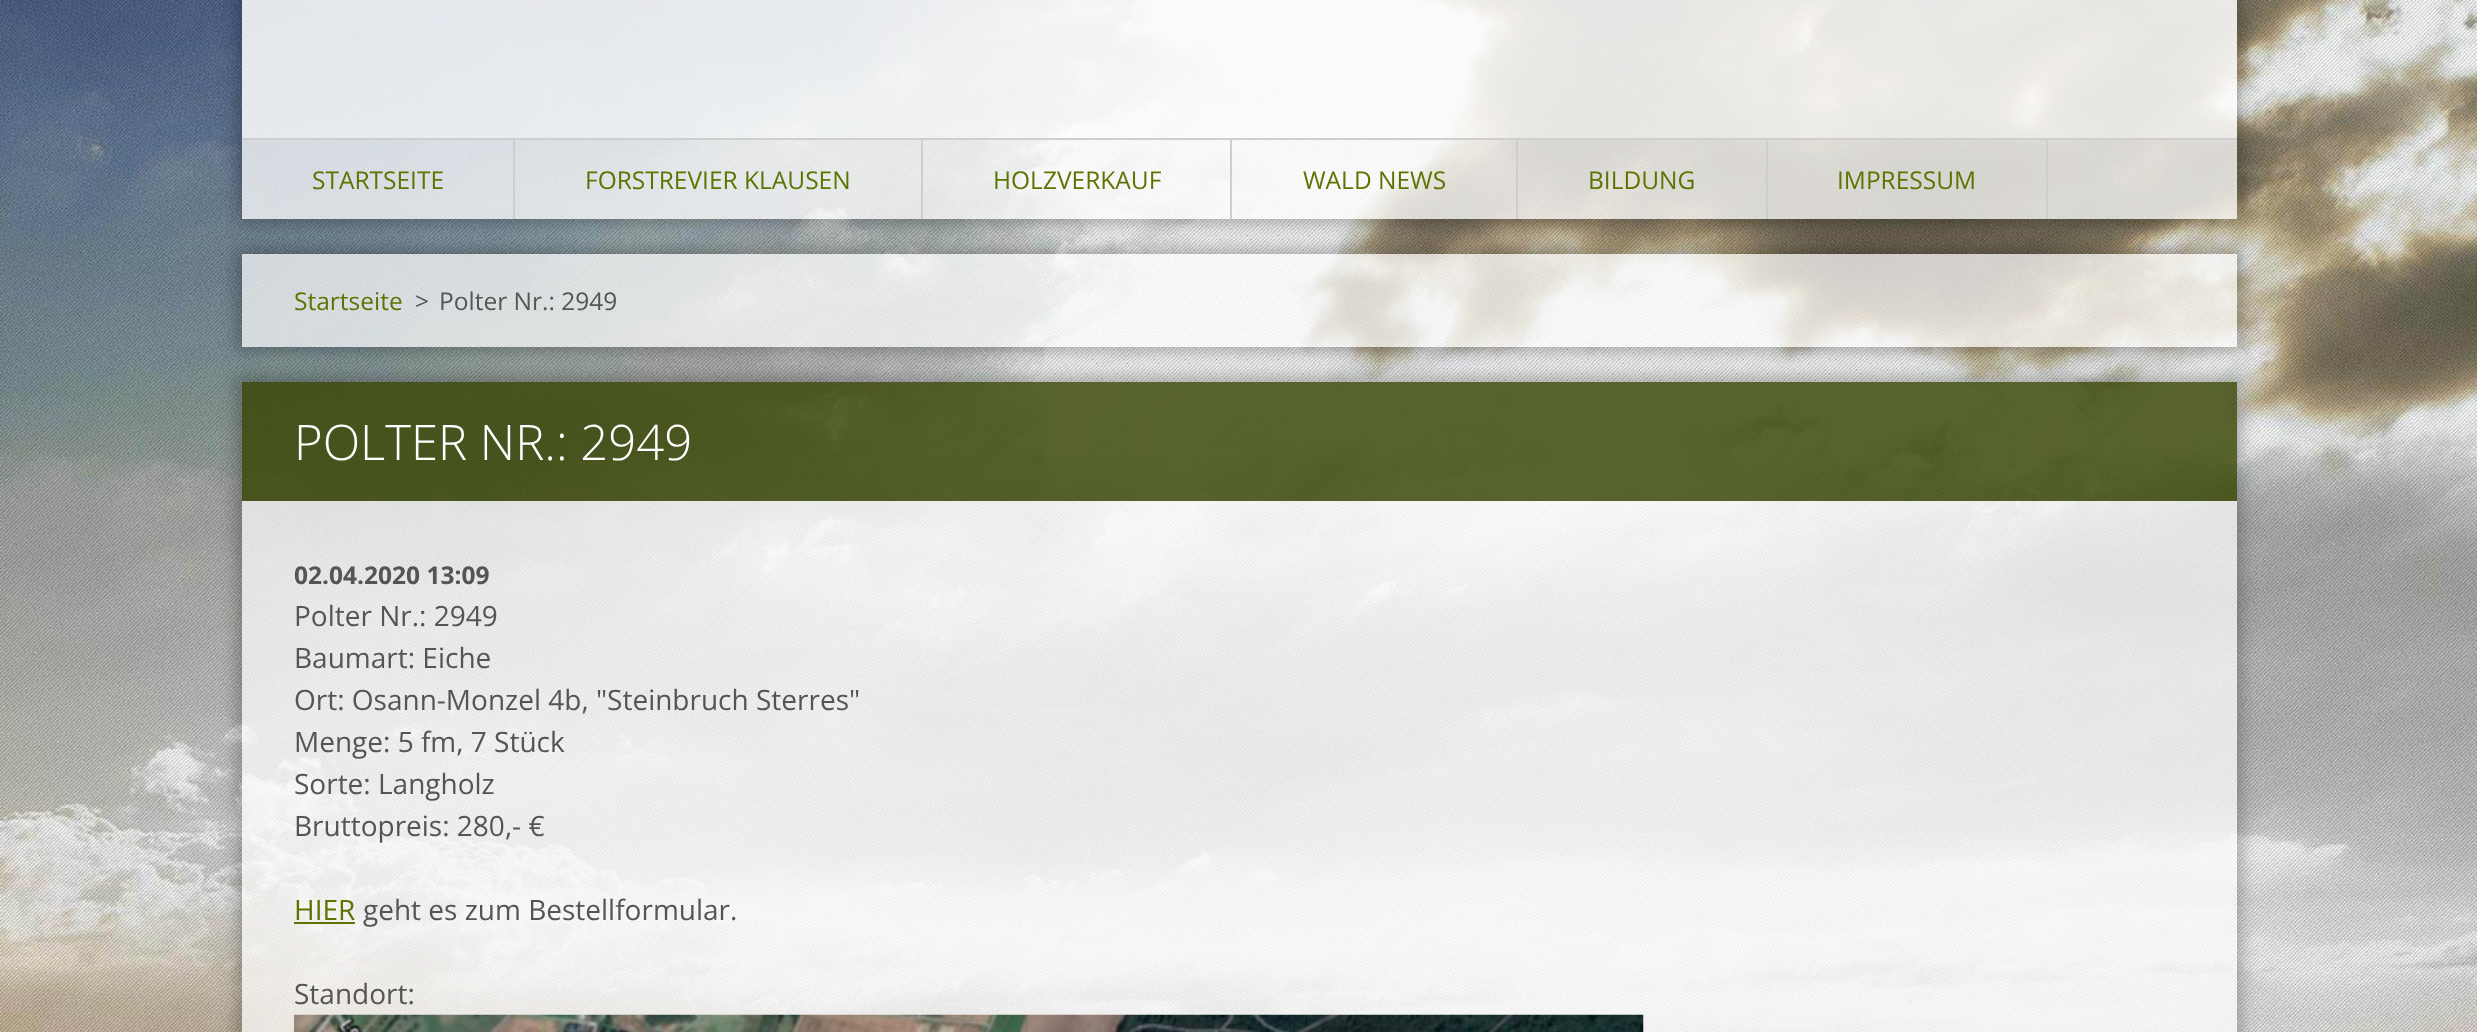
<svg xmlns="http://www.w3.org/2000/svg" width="2477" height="1032">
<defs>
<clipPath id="clip1"><path d="M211 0h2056v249h-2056zm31-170h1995v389h-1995z" clip-rule="evenodd"/></clipPath>
<clipPath id="clip2"><path d="M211 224h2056v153h-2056zm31 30h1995v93h-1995z" clip-rule="evenodd"/></clipPath>
<clipPath id="clip3"><path d="M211 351h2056v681h-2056zm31 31h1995v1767h-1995z" clip-rule="evenodd"/></clipPath>
</defs>
<rect width="100%" height="100%" fill="#fff"/>
<image x="0" y="0" width="2477" height="1032" href="media/1.png"/>
<g clip-path="url(#clip1)">
<rect x="236" y="-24" width="2006" height="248" fill="#00000040" filter="blur(8px)"/>
</g>
<rect x="242" width="1995" height="138" fill="#ffffffd9"/>
<rect x="242" y="138" width="1995" height="2" fill="#cecece"/>
<rect x="242" y="140" width="1995" height="79" fill="#ffffffbf"/>
<rect x="513" y="140" width="2" height="79" fill="#cecece"/>
<text x="312" y="189" style="font-family:Open Sans;font-size:24.5px;fill:#5d7400">STARTSEITE</text>
<rect x="921" y="140" width="2" height="79" fill="#cecece"/>
<text x="585" y="189" style="font-family:Open Sans;font-size:24.5px;fill:#5d7400">FORSTREVIER KLAUSEN</text>
<rect x="1230" y="140" width="2" height="79" fill="#cecece"/>
<text x="993" y="189" style="font-family:Open Sans;font-size:24.5px;fill:#5d7400">HOLZVERKAUF</text>
<rect x="1516" y="140" width="2" height="79" fill="#cecece"/>
<text x="1303" y="189" style="font-family:Open Sans;font-size:24.5px;fill:#5d7400">WALD NEWS</text>
<rect x="1766" y="140" width="2" height="79" fill="#cecece"/>
<text x="1588" y="189" style="font-family:Open Sans;font-size:24.5px;fill:#5d7400">BILDUNG</text>
<rect x="2046" y="140" width="2" height="79" fill="#cecece"/>
<text x="1837" y="189" style="font-family:Open Sans;font-size:24.5px;fill:#5d7400">IMPRESSUM</text>
<g clip-path="url(#clip2)">
<rect x="236" y="249" width="2006" height="103" fill="#00000040" filter="blur(8px)"/>
</g>
<rect x="242" y="254" width="1995" height="93" fill="#ffffffb3"/>
<text x="294" y="310" style="font-family:Open Sans;font-size:24.5px;fill:#5d7400">Startseite</text>
<text x="415" y="310" style="font-family:Open Sans;font-size:24.5px;fill:#555">&gt;</text>
<text x="439" y="310" style="font-family:Open Sans;font-size:24.5px;fill:#555">Polter Nr.: 2949</text>
<g clip-path="url(#clip3)">
<rect x="236" y="376" width="2006" height="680" fill="#00000040" filter="blur(8px)"/>
</g>
<rect x="242" y="382" width="1995" height="119" fill="#354200cc"/>
<text x="294" y="460" style="font-family:Open Sans;font-size:49px;font-weight:300;fill:#fff">POLTER NR.: 2949</text>
<rect x="242" y="501" width="1995" height="531" fill="#ffffffb3"/>
<text x="294" y="584" style="font-family:Open Sans;font-size:24.5px;font-weight:bold;fill:#555">02.04.2020 13:09</text>
<text x="294" y="626" style="font-family:Open Sans;font-size:28px;fill:#555">Polter Nr.: 2949</text>
<text x="294" y="668" style="font-family:Open Sans;font-size:28px;fill:#555">Baumart: Eiche</text>
<text x="294" y="710" style="font-family:Open Sans;font-size:28px;fill:#555">Ort: Osann-Monzel 4b, "Steinbruch Sterres"</text>
<text x="294" y="752" style="font-family:Open Sans;font-size:28px;fill:#555">Menge: 5 fm, 7 Stück</text>
<text x="294" y="794" style="font-family:Open Sans;font-size:28px;fill:#555">Sorte: Langholz</text>
<text x="294" y="836" style="font-family:Open Sans;font-size:28px;fill:#555">Bruttopreis: 280,- €</text>
<text x="294" y="920" style="font-family:Open Sans;font-size:28px;fill:#5d7400">HIER</text>
<rect x="294" y="922" width="61" height="2" fill="#5d7400"/>
<text x="363" y="920" style="font-family:Open Sans;font-size:28px;fill:#555">geht es zum Bestellformular.</text>
<text x="294" y="1004" style="font-family:Open Sans;font-size:28px;fill:#555">Standort:</text>
<image x="294" y="1014" width="1350" height="18" href="media/2.png"/>
</svg>
